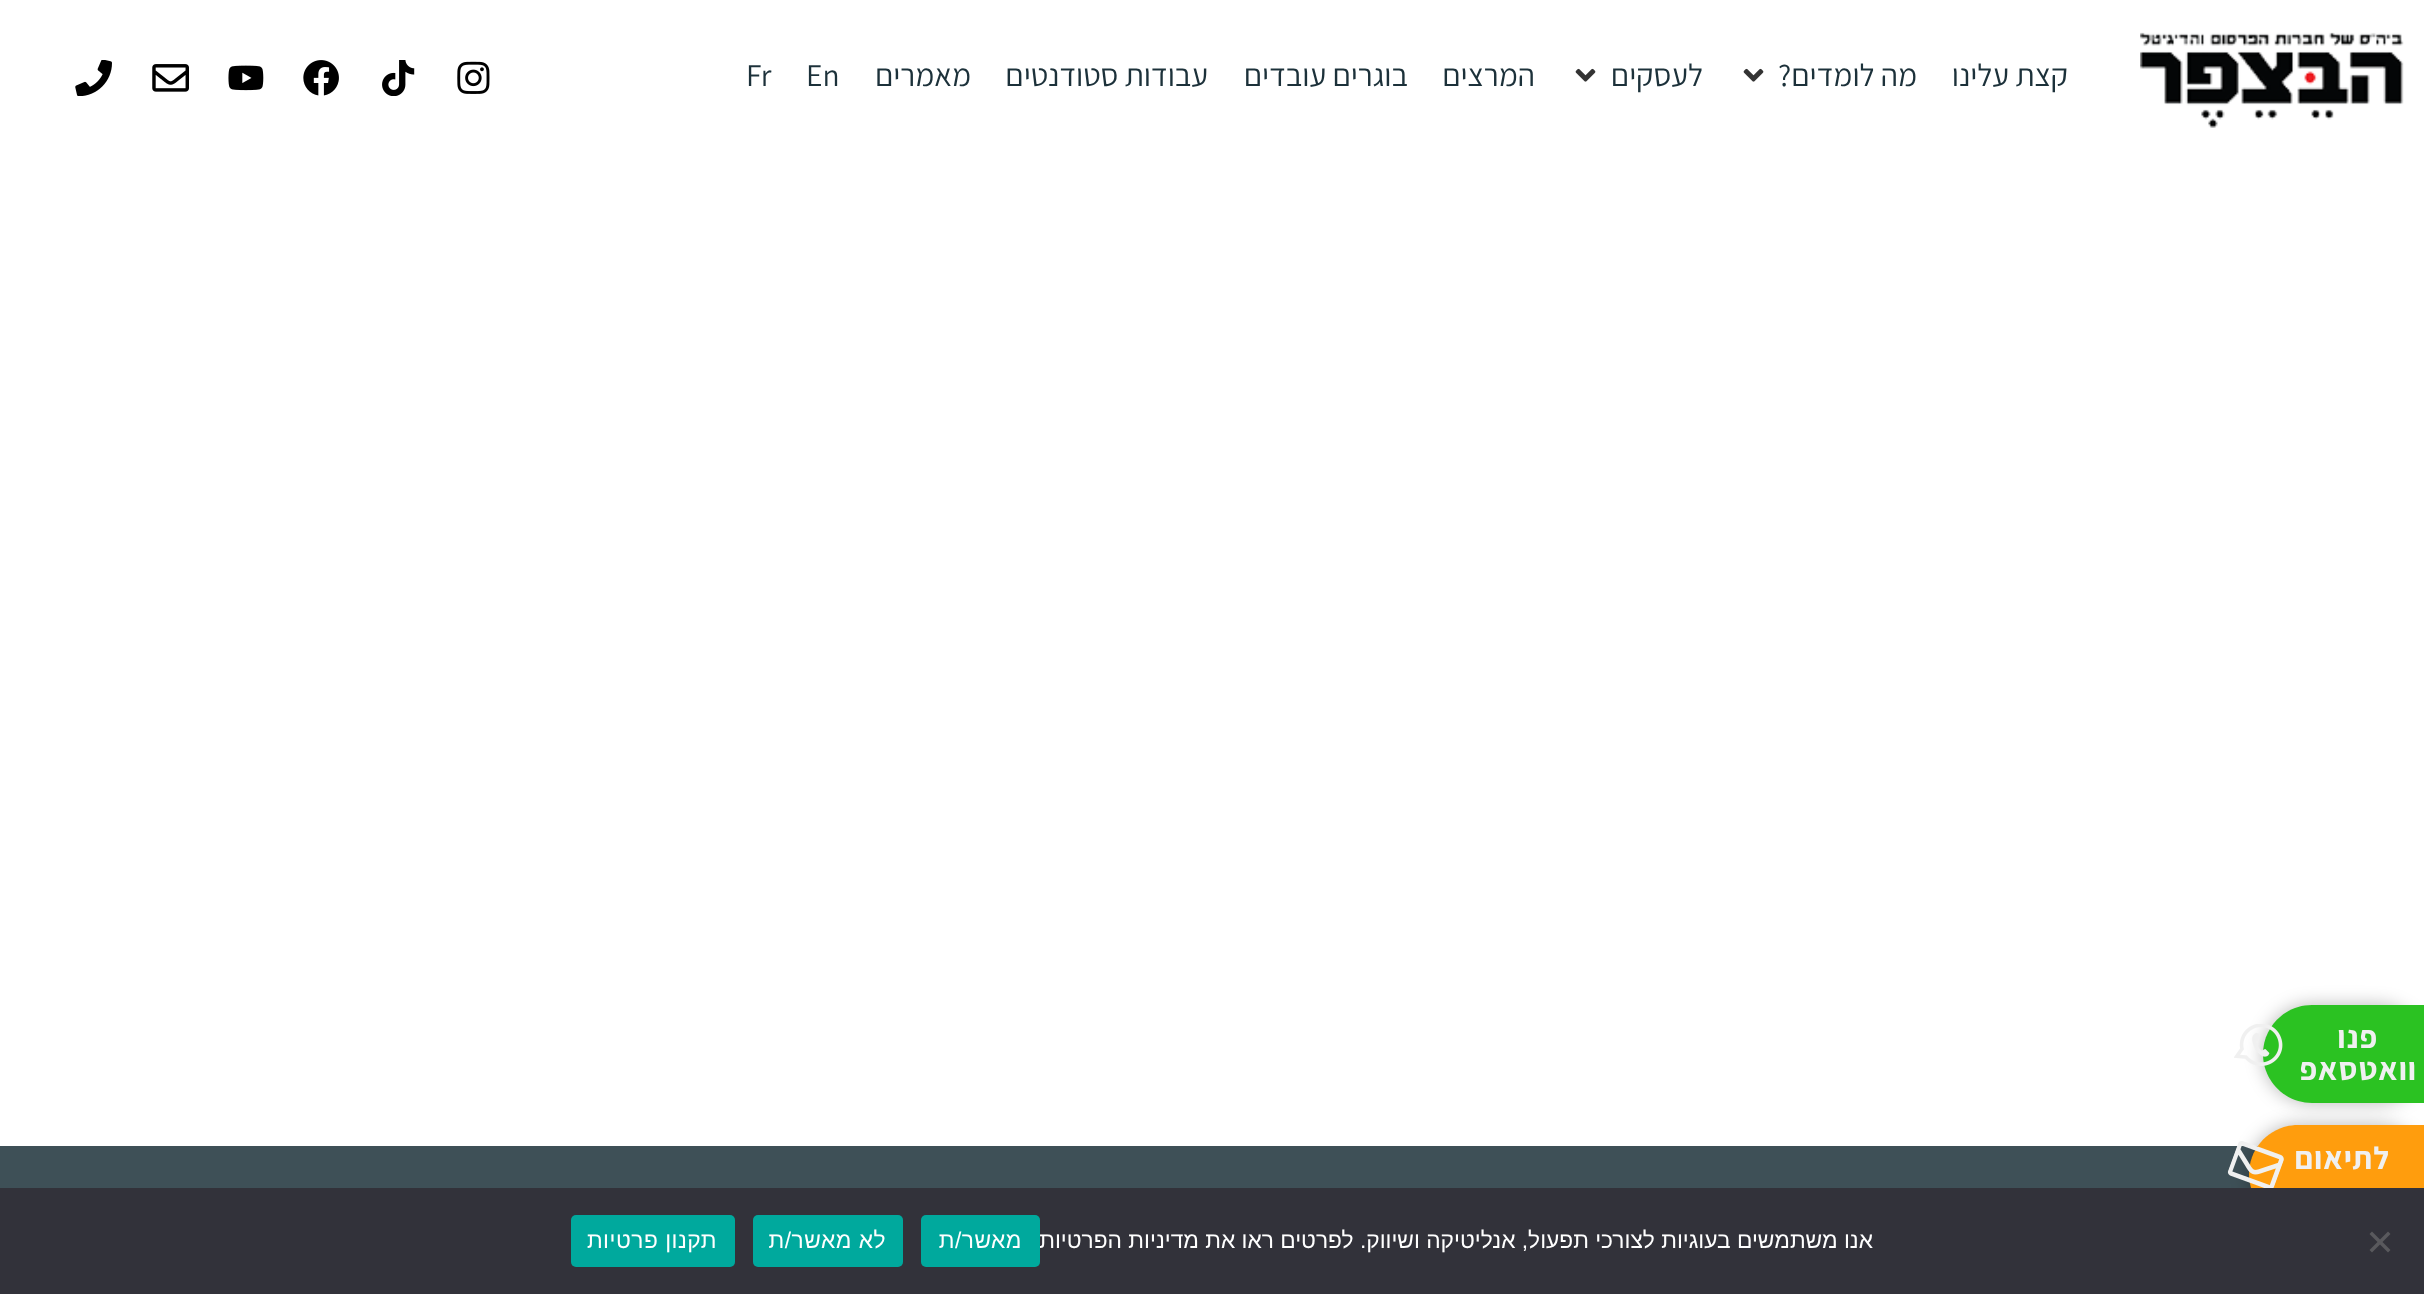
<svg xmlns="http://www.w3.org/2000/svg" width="2424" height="1294">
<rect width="100%" height="100%" fill="#fff"/>
<image x="2140" y="32" width="264" height="96" href="media/1.png"/>
<text x="2068" y="86" style="font-family:Assistant;font-size:31.5px;direction:rtl;fill:#1c313a">קצת עלינו</text>
<text x="1917" y="86" style="font-family:Assistant;font-size:31.5px;direction:rtl;fill:#1c313a">מה לומדים?</text>
<image x="1743" y="68" width="21" height="14" href="media/2.png"/>
<text x="1703" y="86" style="font-family:Assistant;font-size:31.5px;direction:rtl;fill:#1c313a">לעסקים</text>
<image x="1575" y="68" width="21" height="14" href="media/2.png"/>
<text x="1535" y="86" style="font-family:Assistant;font-size:31.5px;direction:rtl;fill:#1c313a">המרצים</text>
<text x="1408" y="86" style="font-family:Assistant;font-size:31.5px;direction:rtl;fill:#1c313a">בוגרים עובדים</text>
<text x="1208" y="86" style="font-family:Assistant;font-size:31.5px;direction:rtl;fill:#1c313a">עבודות סטודנטים</text>
<text x="971" y="86" style="font-family:Assistant;font-size:31.5px;direction:rtl;fill:#1c313a">מאמרים</text>
<text x="806" y="86" style="font-family:Assistant;font-size:31.5px;fill:#1c313a">En</text>
<text x="746" y="86" style="font-family:Assistant;font-size:31.5px;fill:#1c313a">Fr</text>
<image x="457" y="61" width="33" height="33" href="media/3.png"/>
<image x="382" y="60" width="33" height="36" href="media/4.png"/>
<image x="303" y="60" width="36" height="36" href="media/5.png"/>
<image x="228" y="65" width="36" height="26" href="media/6.png"/>
<image x="152" y="64" width="37" height="28" href="media/7.png"/>
<image x="75" y="60" width="37" height="36" href="media/8.png"/>
<rect y="1146" width="2258" height="42" fill="#3e5057"/>
<rect x="2249" y="1125" width="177" height="98" rx="49" fill="#00000047" filter="blur(9px)"/>
<path d="M2298 1125h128v98h-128c-27 0-49-22-49-49c0-27 22-49 49-49z" fill="#ff9d0d"/>
<rect x="2263" y="1005" width="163" height="98" rx="49" fill="#00000047" filter="blur(9px)"/>
<path d="M2312 1005h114v98h-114c-27 0-49-22-49-49c0-27 22-49 49-49z" fill="#2bc222"/>
<text x="2378" y="1048" style="font-family:Assistant;font-size:31.5px;font-weight:bold;letter-spacing:1px;direction:rtl;fill:#f0f0f0">פנו</text>
<text x="2417" y="1080" style="font-family:Assistant;font-size:31.5px;font-weight:bold;letter-spacing:1px;direction:rtl;fill:#f0f0f0">וואטסאפ</text>
<image x="2234" y="1024" width="49" height="42" href="media/9.png"/>
<text x="2390" y="1169" style="font-family:Assistant;font-size:31.5px;font-weight:bold;letter-spacing:1px;direction:rtl;fill:#f0f0f0">לתיאום</text>
<image x="2227" y="1141" width="57" height="47" href="media/10.png"/>
<rect y="1188" width="2424" height="106" fill="#32323a"/>
<path d="M2388 1231.5l2.5 2.5l-18.5 18.5l-2.5-2.5z" fill="#59595d"/>
<path d="M2369.5 1234l2.5-2.5l18.5 18.5l-2.5 2.5z" fill="#59595d"/>
<text x="1873" y="1248" style="font-family:Liberation Sans;font-size:22.75px;direction:rtl;fill:#fff">אנו משתמשים בעוגיות לצורכי תפעול, אנליטיקה ושיווק. לפרטים ראו את מדיניות הפרטיות</text>
<rect x="921" y="1215" width="119" height="52" rx="5" fill="#00a99d"/>
<text x="1022" y="1248" style="font-family:Liberation Sans;font-size:22.75px;letter-spacing:0.5px;direction:rtl;fill:#fff">מאשר/ת</text>
<rect x="753" y="1215" width="150" height="52" rx="5" fill="#00a99d"/>
<text x="886" y="1248" style="font-family:Liberation Sans;font-size:22.75px;letter-spacing:0.5px;direction:rtl;fill:#fff">לא מאשר/ת</text>
<rect x="571" y="1215" width="164" height="52" rx="5" fill="#00a99d"/>
<text x="717" y="1248" style="font-family:Liberation Sans;font-size:22.75px;letter-spacing:0.5px;direction:rtl;fill:#fff">תקנון פרטיות</text>
</svg>
